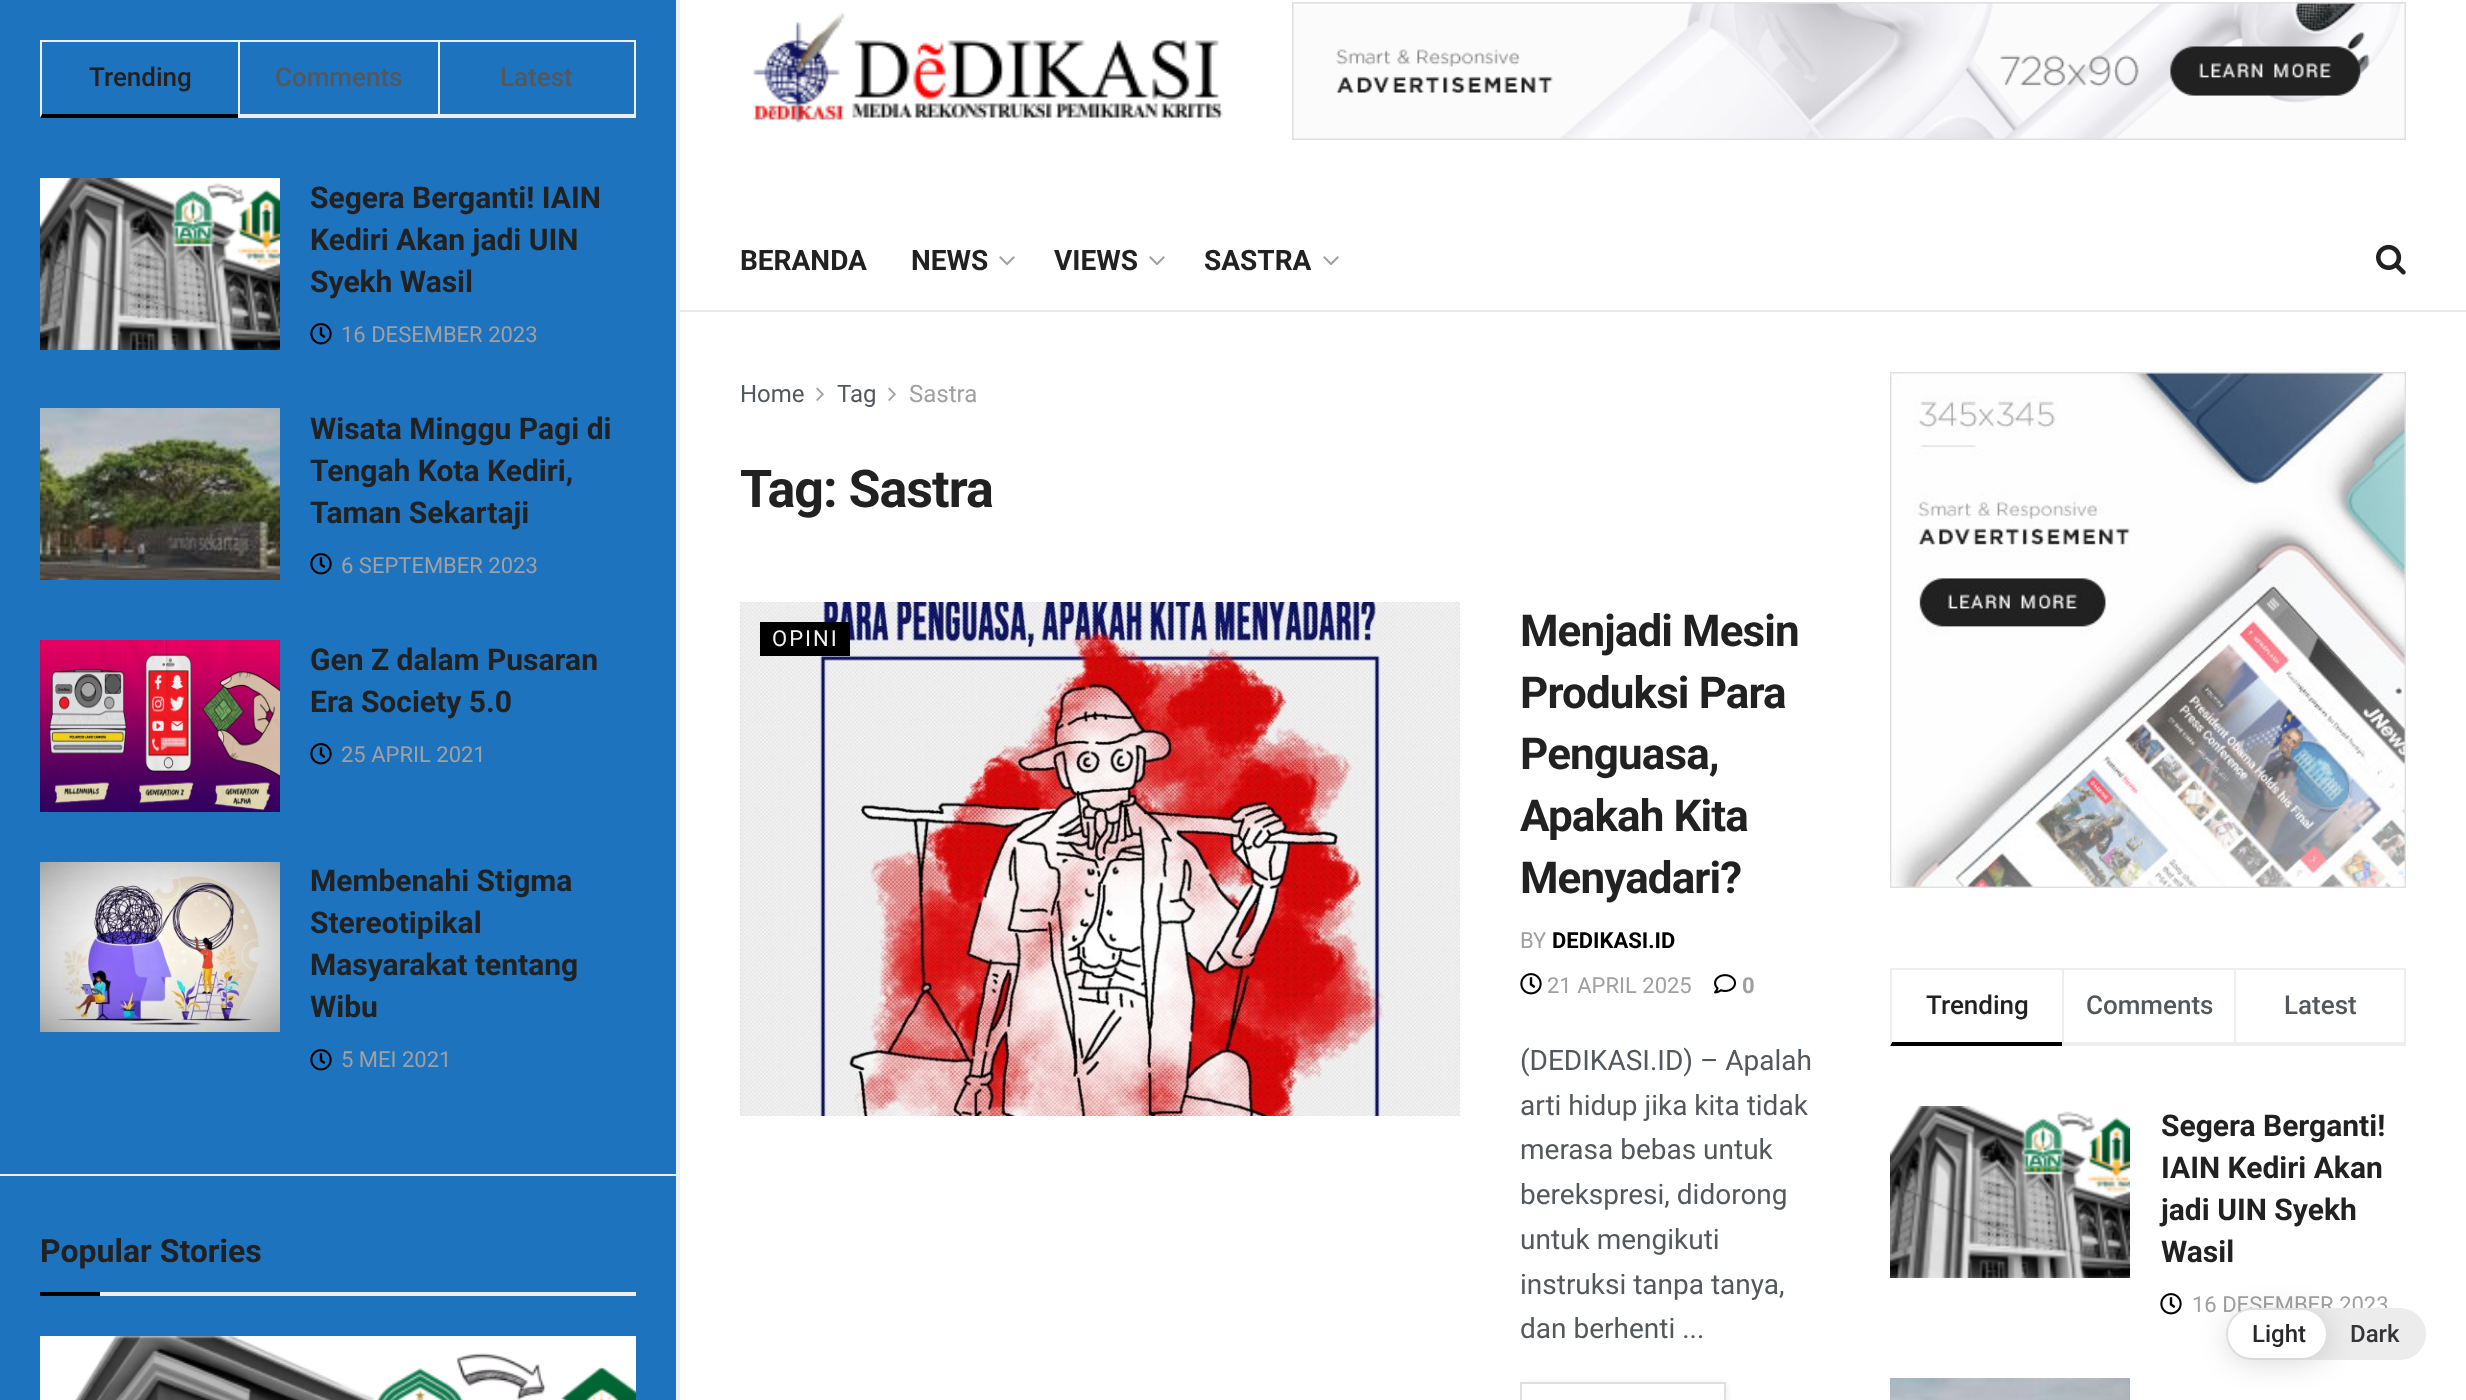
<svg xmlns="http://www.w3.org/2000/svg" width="2466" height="1400">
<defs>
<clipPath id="clip1"><rect x="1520" y="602" width="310" height="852"/></clipPath>
<clipPath id="clip2"><path d="M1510 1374h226v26h-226zm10 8h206v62h-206z" clip-rule="evenodd"/></clipPath>
</defs>
<rect width="100%" height="100%" fill="#fff"/>
<rect width="676" height="1400" fill="#1e73be"/>
<rect x="676" width="4" height="1400" fill="#eee"/>
<rect x="40" y="40" width="596" height="2" fill="#eee"/>
<path d="M238 118h-198l2-4h196z" fill="#000"/>
<path d="M40 118v-78l2 2v72z" fill="#eee"/>
<text x="89" y="86" style="font-family:Roboto;font-size:26px;font-weight:500;fill:#212121">Trending</text>
<rect x="238" y="114" width="200" height="4" fill="#eee"/>
<rect x="238" y="40" width="2" height="78" fill="#eee"/>
<text x="275" y="86" style="font-family:Roboto;font-size:26px;font-weight:500;fill:#53585c">Comments</text>
<rect x="634" y="40" width="2" height="78" fill="#eee"/>
<rect x="438" y="114" width="198" height="4" fill="#eee"/>
<rect x="438" y="40" width="2" height="78" fill="#eee"/>
<text x="500" y="86" style="font-family:Roboto;font-size:26px;font-weight:500;fill:#53585c">Latest</text>
<image x="40" y="178" width="240" height="172" href="media/1.png"/>
<text x="310" y="208" style="font-family:Roboto;font-size:30px;font-weight:bold;fill:#212121">Segera Berganti! IAIN</text>
<text x="310" y="250" style="font-family:Roboto;font-size:30px;font-weight:bold;fill:#212121">Kediri Akan jadi UIN</text>
<text x="310" y="292" style="font-family:Roboto;font-size:30px;font-weight:bold;fill:#212121">Syekh Wasil</text>
<image x="310" y="323" width="22" height="22" href="media/2.png"/>
<text x="341" y="342" style="font-family:Roboto;font-size:22px;fill:#a0a0a0">16 DESEMBER 2023</text>
<image x="40" y="408" width="240" height="172" href="media/3.png"/>
<text x="310" y="439" style="font-family:Roboto;font-size:30px;font-weight:bold;fill:#212121">Wisata Minggu Pagi di</text>
<text x="310" y="481" style="font-family:Roboto;font-size:30px;font-weight:bold;fill:#212121">Tengah Kota Kediri,</text>
<text x="310" y="523" style="font-family:Roboto;font-size:30px;font-weight:bold;fill:#212121">Taman Sekartaji</text>
<image x="310" y="553" width="22" height="22" href="media/2.png"/>
<text x="341" y="573" style="font-family:Roboto;font-size:22px;fill:#a0a0a0">6 SEPTEMBER 2023</text>
<image x="40" y="640" width="240" height="172" href="media/4.png"/>
<text x="310" y="670" style="font-family:Roboto;font-size:30px;font-weight:bold;fill:#212121">Gen Z dalam Pusaran</text>
<text x="310" y="712" style="font-family:Roboto;font-size:30px;font-weight:bold;fill:#212121">Era Society 5.0</text>
<image x="310" y="743" width="22" height="22" href="media/2.png"/>
<text x="341" y="762" style="font-family:Roboto;font-size:22px;fill:#a0a0a0">25 APRIL 2021</text>
<image x="40" y="862" width="240" height="170" href="media/5.png"/>
<text x="310" y="891" style="font-family:Roboto;font-size:30px;font-weight:bold;fill:#212121">Membenahi Stigma</text>
<text x="310" y="933" style="font-family:Roboto;font-size:30px;font-weight:bold;fill:#212121">Stereotipikal</text>
<text x="310" y="975" style="font-family:Roboto;font-size:30px;font-weight:bold;fill:#212121">Masyarakat tentang</text>
<text x="310" y="1017" style="font-family:Roboto;font-size:30px;font-weight:bold;fill:#212121">Wibu</text>
<image x="310" y="1049" width="22" height="22" href="media/2.png"/>
<text x="341" y="1067" style="font-family:Roboto;font-size:22px;fill:#a0a0a0">5 MEI 2021</text>
<rect y="1174" width="676" height="2" fill="#eee"/>
<rect x="100" y="1292" width="536" height="4" fill="#eee"/>
<text x="40" y="1262" style="font-family:Roboto;font-size:32px;font-weight:bold;fill:#212121">Popular Stories</text>
<rect x="40" y="1292" width="60" height="4" fill="#000"/>
<rect x="113" y="1336" width="122" height="4" fill="#f7f7f7"/>
<image x="40" y="1336" width="596" height="64" href="media/6.png"/>
<image x="753" y="13" width="470" height="110" href="media/7.png"/>
<image x="1292" y="2" width="1114" height="138" href="media/8.png"/>
<rect x="680" y="310" width="1786" height="2" fill="#e8e8e8"/>
<text x="740" y="270" style="font-family:Roboto;font-size:28px;font-weight:bold;fill:#212121">BERANDA</text>
<text x="911" y="270" style="font-family:Roboto;font-size:28px;font-weight:bold;fill:#212121">NEWS</text>
<image x="999" y="256" width="16" height="10" href="media/9.png"/>
<text x="1054" y="270" style="font-family:Roboto;font-size:28px;font-weight:bold;fill:#212121">VIEWS</text>
<image x="1149" y="256" width="16" height="10" href="media/9.png"/>
<text x="1204" y="270" style="font-family:Roboto;font-size:28px;font-weight:bold;fill:#212121">SASTRA</text>
<image x="1323" y="256" width="16" height="10" href="media/9.png"/>
<image x="2376" y="244" width="30" height="31" href="media/10.png"/>
<text x="740" y="402" style="font-family:Roboto;font-size:24px;fill:#53585c">Home</text>
<image x="816" y="387" width="8" height="14" href="media/11.png"/>
<text x="837" y="402" style="font-family:Roboto;font-size:24px;fill:#53585c">Tag</text>
<image x="888" y="387" width="8" height="14" href="media/11.png"/>
<text x="909" y="402" style="font-family:Roboto;font-size:24px;fill:#a0a0a0">Sastra</text>
<text x="740" y="507" style="font-family:Roboto;font-size:52px;font-weight:bold;letter-spacing:-1px;fill:#212121">Tag: Sastra</text>
<image x="740" y="602" width="720" height="514" href="media/12.png"/>
<rect x="760" y="622" width="90" height="34" fill="#000"/>
<text x="772" y="646" style="font-family:Roboto;font-size:22px;letter-spacing:2px;fill:#f2f2f2">OPINI</text>
<text x="1520" y="646" style="font-family:Roboto;font-size:44px;font-weight:bold;letter-spacing:-0.9px;fill:#212121">Menjadi Mesin</text>
<text x="1520" y="708" style="font-family:Roboto;font-size:44px;font-weight:bold;letter-spacing:-0.9px;fill:#212121">Produksi Para</text>
<text x="1520" y="769" style="font-family:Roboto;font-size:44px;font-weight:bold;letter-spacing:-0.9px;fill:#212121">Penguasa,</text>
<text x="1520" y="831" style="font-family:Roboto;font-size:44px;font-weight:bold;letter-spacing:-0.9px;fill:#212121">Apakah Kita</text>
<text x="1520" y="893" style="font-family:Roboto;font-size:44px;font-weight:bold;letter-spacing:-0.9px;fill:#212121">Menyadari?</text>
<text x="1520" y="948" style="font-family:Roboto;font-size:22px;fill:#a0a0a0">BY</text>
<text x="1552" y="948" style="font-family:Roboto;font-size:22px;font-weight:bold;fill:#000">DEDIKASI.ID</text>
<image x="1520" y="973" width="22" height="22" href="media/13.png"/>
<text x="1547" y="993" style="font-family:Roboto;font-size:22px;fill:#a0a0a0">21 APRIL 2025</text>
<image x="1714" y="974" width="22" height="20" href="media/14.png"/>
<text x="1742" y="993" style="font-family:Roboto;font-size:22px;font-weight:bold;fill:#a0a0a0">0</text>
<text x="1520" y="1070" style="font-family:Roboto;font-size:28px;fill:#53585c">(DEDIKASI.ID) – Apalah</text>
<text x="1520" y="1115" style="font-family:Roboto;font-size:28px;fill:#53585c">arti hidup jika kita tidak</text>
<text x="1520" y="1159" style="font-family:Roboto;font-size:28px;fill:#53585c">merasa bebas untuk</text>
<text x="1520" y="1204" style="font-family:Roboto;font-size:28px;fill:#53585c">berekspresi, didorong</text>
<text x="1520" y="1249" style="font-family:Roboto;font-size:28px;fill:#53585c">untuk mengikuti</text>
<text x="1520" y="1294" style="font-family:Roboto;font-size:28px;fill:#53585c">instruksi tanpa tanya,</text>
<text x="1520" y="1338" style="font-family:Roboto;font-size:28px;fill:#53585c">dan berhenti ...</text>
<g clip-path="url(#clip1)">
<g clip-path="url(#clip2)">
<rect x="1520" y="1384" width="206" height="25" fill="#0000001a" filter="blur(3px)"/>
</g>
</g>
<rect x="1521" y="1383" width="204" height="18" fill="none" stroke="#e0e0e0" stroke-width="2"/>
<image x="1890" y="372" width="516" height="516" href="media/15.png"/>
<rect x="1890" y="968" width="516" height="2" fill="#eee"/>
<path d="M2062 1046h-172l2-4h170z" fill="#000"/>
<path d="M1890 1046v-78l2 2v72z" fill="#eee"/>
<text x="1926" y="1014" style="font-family:Roboto;font-size:26px;font-weight:500;fill:#212121">Trending</text>
<rect x="2062" y="1042" width="172" height="4" fill="#eee"/>
<rect x="2062" y="968" width="2" height="78" fill="#eee"/>
<text x="2086" y="1014" style="font-family:Roboto;font-size:26px;font-weight:500;fill:#53585c">Comments</text>
<rect x="2404" y="968" width="2" height="78" fill="#eee"/>
<rect x="2234" y="1042" width="172" height="4" fill="#eee"/>
<rect x="2234" y="968" width="2" height="78" fill="#eee"/>
<text x="2284" y="1014" style="font-family:Roboto;font-size:26px;font-weight:500;fill:#53585c">Latest</text>
<image x="1890" y="1106" width="240" height="172" href="media/1.png"/>
<text x="2161" y="1136" style="font-family:Roboto;font-size:30px;font-weight:bold;fill:#212121">Segera Berganti!</text>
<text x="2161" y="1178" style="font-family:Roboto;font-size:30px;font-weight:bold;fill:#212121">IAIN Kediri Akan</text>
<text x="2161" y="1220" style="font-family:Roboto;font-size:30px;font-weight:bold;fill:#212121">jadi UIN Syekh</text>
<text x="2161" y="1262" style="font-family:Roboto;font-size:30px;font-weight:bold;fill:#212121">Wasil</text>
<image x="2160" y="1293" width="22" height="22" href="media/13.png"/>
<text x="2192" y="1312" style="font-family:Roboto;font-size:22px;fill:#a0a0a0">16 DESEMBER 2023</text>
<image x="1890" y="1378" width="240" height="22" href="media/16.png"/>
<rect x="2226" y="1308" width="200" height="52" rx="26" fill="#ececec"/>
<rect x="2228" y="1314" width="98" height="48" rx="24" fill="#00000026" filter="blur(15px)"/>
<rect x="2228" y="1310" width="98" height="48" rx="24" fill="#fff"/>
<text x="2252" y="1342" style="font-family:Roboto;font-size:24px;font-weight:500;fill:#27272c">Light</text>
<text x="2350" y="1342" style="font-family:Roboto;font-size:24px;font-weight:500;fill:#333338">Dark</text>
</svg>
